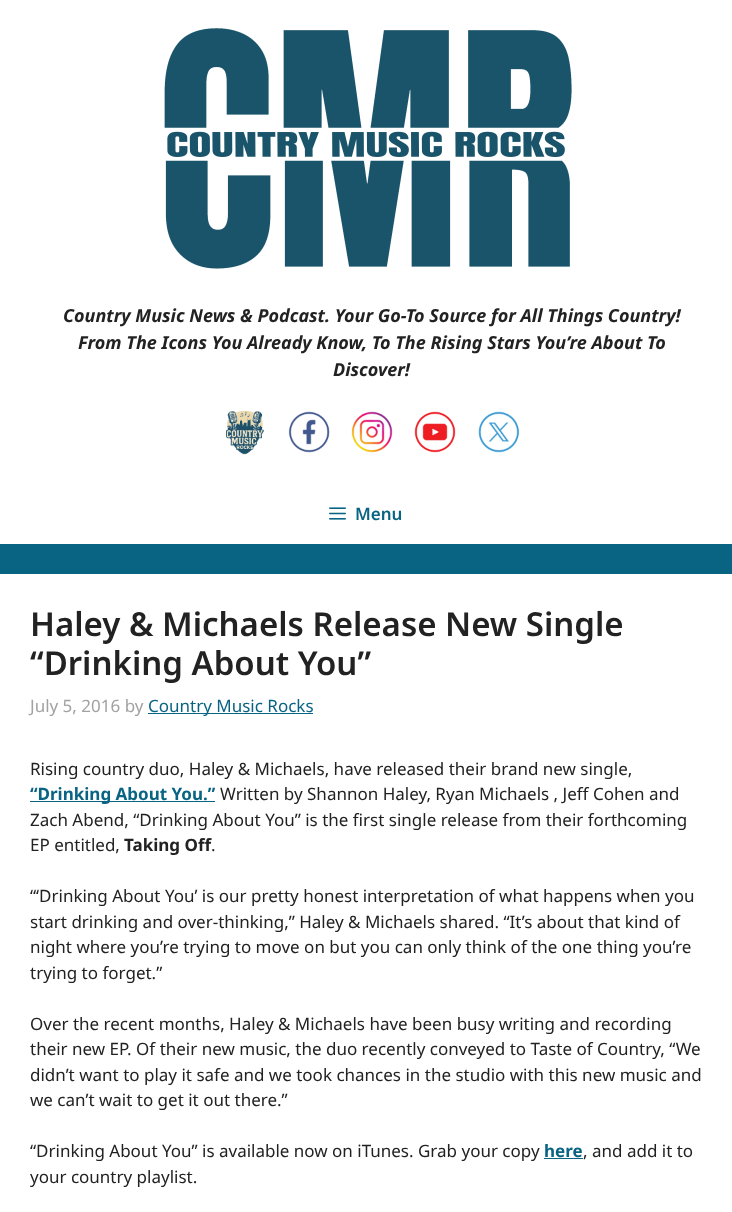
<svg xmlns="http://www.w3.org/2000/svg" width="732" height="1212">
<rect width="100%" height="100%" fill="#096484"/>
<rect width="732" height="544" fill="#fff"/>
<image x="164" y="28" width="408" height="241" href="media/1.png"/>
<text x="63" y="322" style="font-family:Noto Sans;font-size:18px;font-weight:bold;font-style:italic;fill:#222">Country Music News &amp; Podcast. Your Go-To Source for All Things Country!</text>
<text x="78" y="349" style="font-family:Noto Sans;font-size:18px;font-weight:bold;font-style:italic;fill:#222">From The Icons You Already Know, To The Rising Stars You’re About To</text>
<text x="333" y="376" style="font-family:Noto Sans;font-size:18px;font-weight:bold;font-style:italic;fill:#222">Discover!</text>
<image x="226" y="410" width="38" height="45" href="media/2.png"/>
<image x="288" y="411" width="42" height="42" href="media/3.png"/>
<image x="351" y="411" width="42" height="42" href="media/4.png"/>
<image x="414" y="411" width="42" height="42" href="media/5.png"/>
<image x="478" y="411" width="42" height="42" href="media/6.png"/>
<image x="329" y="507" width="17" height="13" href="media/7.png"/>
<text x="355" y="520" style="font-family:Noto Sans;font-size:17px;font-weight:600;fill:#096484">Menu</text>
<rect y="574" width="732" height="638" fill="#fff"/>
<text x="30" y="636" style="font-family:Noto Sans;font-size:33px;font-weight:600;fill:#222">Haley &amp; Michaels Release New Single</text>
<text x="30" y="675" style="font-family:Noto Sans;font-size:33px;font-weight:600;fill:#222">“Drinking About You”</text>
<text x="30" y="712" style="font-family:Noto Sans;font-size:17px;fill:#a2a2a2">July 5, 2016 by</text>
<rect x="148" y="713" width="165" height="1" fill="#096484"/>
<text x="148" y="712" style="font-family:Noto Sans;font-size:17px;fill:#096484">Country Music Rocks</text>
<text x="30" y="775" style="font-family:Noto Sans;font-size:17px;fill:#222">Rising country duo, Haley &amp; Michaels, have released their brand new single,</text>
<rect x="30" y="801" width="185" height="1" fill="#096484"/>
<text x="30" y="800" style="font-family:Noto Sans;font-size:17px;font-weight:bold;fill:#096484">“Drinking About You.”</text>
<text x="220" y="800" style="font-family:Noto Sans;font-size:17px;fill:#222">Written by Shannon Haley, Ryan Michaels , Jeff Cohen and</text>
<text x="30" y="826" style="font-family:Noto Sans;font-size:17px;fill:#222">Zach Abend, “Drinking About You” is the first single release from their forthcoming</text>
<text x="30" y="851" style="font-family:Noto Sans;font-size:17px;fill:#222">EP entitled,</text>
<text x="124" y="851" style="font-family:Noto Sans;font-size:17px;font-weight:bold;fill:#222">Taking Off</text>
<text x="211" y="851" style="font-family:Noto Sans;font-size:17px;fill:#222">.</text>
<text x="30" y="902" style="font-family:Noto Sans;font-size:17px;fill:#222">“‘Drinking About You’ is our pretty honest interpretation of what happens when you</text>
<text x="30" y="928" style="font-family:Noto Sans;font-size:17px;fill:#222">start drinking and over-thinking,” Haley &amp; Michaels shared. “It’s about that kind of</text>
<text x="30" y="953" style="font-family:Noto Sans;font-size:17px;fill:#222">night where you’re trying to move on but you can only think of the one thing you’re</text>
<text x="30" y="979" style="font-family:Noto Sans;font-size:17px;fill:#222">trying to forget.”</text>
<text x="30" y="1030" style="font-family:Noto Sans;font-size:17px;fill:#222">Over the recent months, Haley &amp; Michaels have been busy writing and recording</text>
<text x="30" y="1055" style="font-family:Noto Sans;font-size:17px;fill:#222">their new EP. Of their new music, the duo recently conveyed to Taste of Country, “We</text>
<text x="30" y="1081" style="font-family:Noto Sans;font-size:17px;fill:#222">didn’t want to play it safe and we took chances in the studio with this new music and</text>
<text x="30" y="1106" style="font-family:Noto Sans;font-size:17px;fill:#222">we can’t wait to get it out there.”</text>
<text x="30" y="1157" style="font-family:Noto Sans;font-size:17px;fill:#222">“Drinking About You” is available now on iTunes. Grab your copy</text>
<text x="544" y="1157" style="font-family:Noto Sans;font-size:17px;font-weight:bold;fill:#096484">here</text>
<rect x="544" y="1158" width="39" height="1" fill="#096484"/>
<text x="583" y="1157" style="font-family:Noto Sans;font-size:17px;fill:#222">, and add it to</text>
<text x="30" y="1183" style="font-family:Noto Sans;font-size:17px;fill:#222">your country playlist.</text>
</svg>
